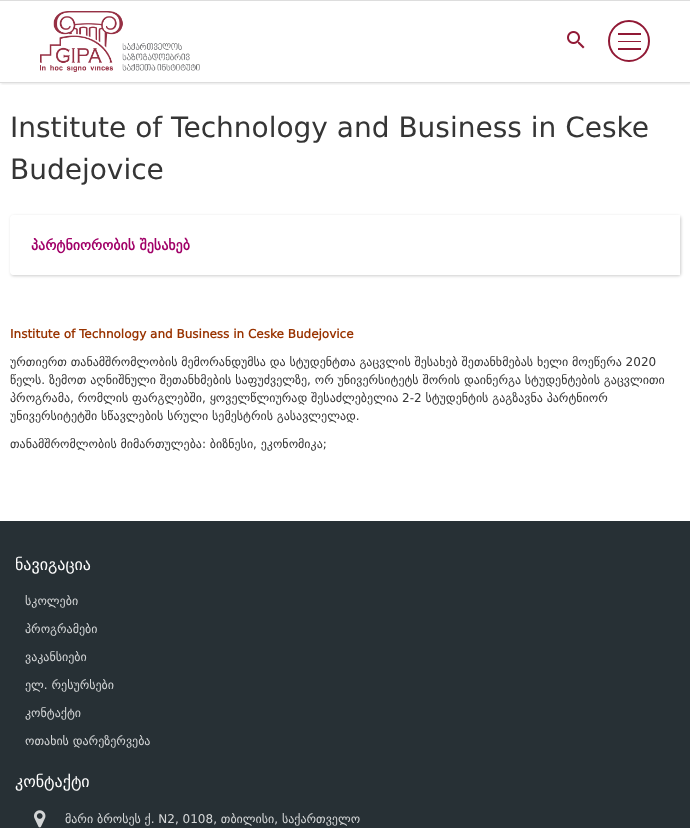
<svg xmlns="http://www.w3.org/2000/svg" width="690" height="828">
<defs>
<clipPath id="clip1"><rect x="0" y="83" width="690" height="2"/></clipPath>
</defs>
<rect width="100%" height="100%" fill="#fff"/>
<g clip-path="url(#clip1)">
<rect x="1" y="1" width="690" height="83" fill="#0000001a" filter="blur(1px)"/>
</g>
<rect width="690" height="1" fill="#ddd"/>
<rect y="82" width="690" height="1" fill="#ddd"/>
<image x="40" y="11" width="160" height="61" href="media/1.png"/>
<image x="567" y="31" width="18" height="18" href="media/2.png"/>
<circle cx="629" cy="41" r="20" fill="none" stroke="#911935" stroke-width="2"/>
<rect x="618" y="33" width="23" height="2" fill="#911935"/>
<rect x="618" y="41" width="23" height="1" fill="#911935"/>
<rect x="618" y="48" width="23" height="2" fill="#911935"/>
<text x="10" y="137" style="font-family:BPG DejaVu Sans;font-size:28px;fill:#353535">Institute of Technology and Business in Ceske</text>
<text x="10" y="179" style="font-family:BPG DejaVu Sans;font-size:28px;fill:#353535">Budejovice</text>
<rect x="11" y="216" width="670" height="60" rx="3" fill="#00000033" filter="blur(1.5px)"/>
<path d="M13 215h667v60h-667c-1.5 0-3-1.5-3-3v-54c0-1.5 1.5-3 3-3z" fill="#fff"/>
<text x="31" y="250" style="font-family:BPG DejaVu Sans;font-size:14px;font-weight:bold;fill:#a10068">პარტნიორობის შესახებ</text>
<text x="10" y="338" style="font-family:BPG DejaVu Sans;font-size:12px;font-weight:bold;fill:#930">Institute of Technology and Business in Ceske Budejovice</text>
<text x="10" y="366" style="font-family:BPG DejaVu Sans;font-size:12px;fill:#353535">ურთიერთ თანამშრომლობის მემორანდუმსა და სტუდენტთა გაცვლის შესახებ შეთანხმებას ხელი მოეწერა 2020</text>
<text x="10" y="384" style="font-family:BPG DejaVu Sans;font-size:12px;fill:#353535">წელს. ზემოთ აღნიშნული შეთანხმების საფუძველზე, ორ უნივერსიტეტს შორის დაინერგა სტუდენტების გაცვლითი</text>
<text x="10" y="402" style="font-family:BPG DejaVu Sans;font-size:12px;fill:#353535">პროგრამა, რომლის ფარგლებში, ყოველწლიურად შესაძლებელია 2-2 სტუდენტის გაგზავნა პარტნიორ</text>
<text x="10" y="420" style="font-family:BPG DejaVu Sans;font-size:12px;fill:#353535">უნივერსიტეტში სწავლების სრული სემესტრის გასავლელად.</text>
<text x="10" y="448" style="font-family:BPG DejaVu Sans;font-size:12px;fill:#353535">თანამშრომლობის მიმართულება: ბიზნესი, ეკონომიკა;</text>
<rect y="521" width="690" height="307" fill="#273035"/>
<text x="15" y="570" style="font-family:BPG DejaVu Sans;font-size:16px;fill:#fff">ნავიგაცია</text>
<text x="25" y="605" style="font-family:BPG DejaVu Sans;font-size:12px;fill:#d4d6d7">სკოლები</text>
<text x="25" y="633" style="font-family:BPG DejaVu Sans;font-size:12px;fill:#d4d6d7">პროგრამები</text>
<text x="25" y="661" style="font-family:BPG DejaVu Sans;font-size:12px;fill:#d4d6d7">ვაკანსიები</text>
<text x="25" y="689" style="font-family:BPG DejaVu Sans;font-size:12px;fill:#d4d6d7">ელ. რესურსები</text>
<text x="25" y="717" style="font-family:BPG DejaVu Sans;font-size:12px;fill:#d4d6d7">კონტაქტი</text>
<text x="25" y="745" style="font-family:BPG DejaVu Sans;font-size:12px;fill:#d4d6d7">ოთახის დარეზერვება</text>
<text x="15" y="787" style="font-family:BPG DejaVu Sans;font-size:16px;fill:#fff">კონტაქტი</text>
<image x="34" y="810" width="12" height="18" href="media/3.png"/>
<text x="65" y="823" style="font-family:BPG DejaVu Sans;font-size:12px;fill:#d4d6d7">მარი ბროსეს ქ. N2, 0108, თბილისი, საქართველო</text>
</svg>
